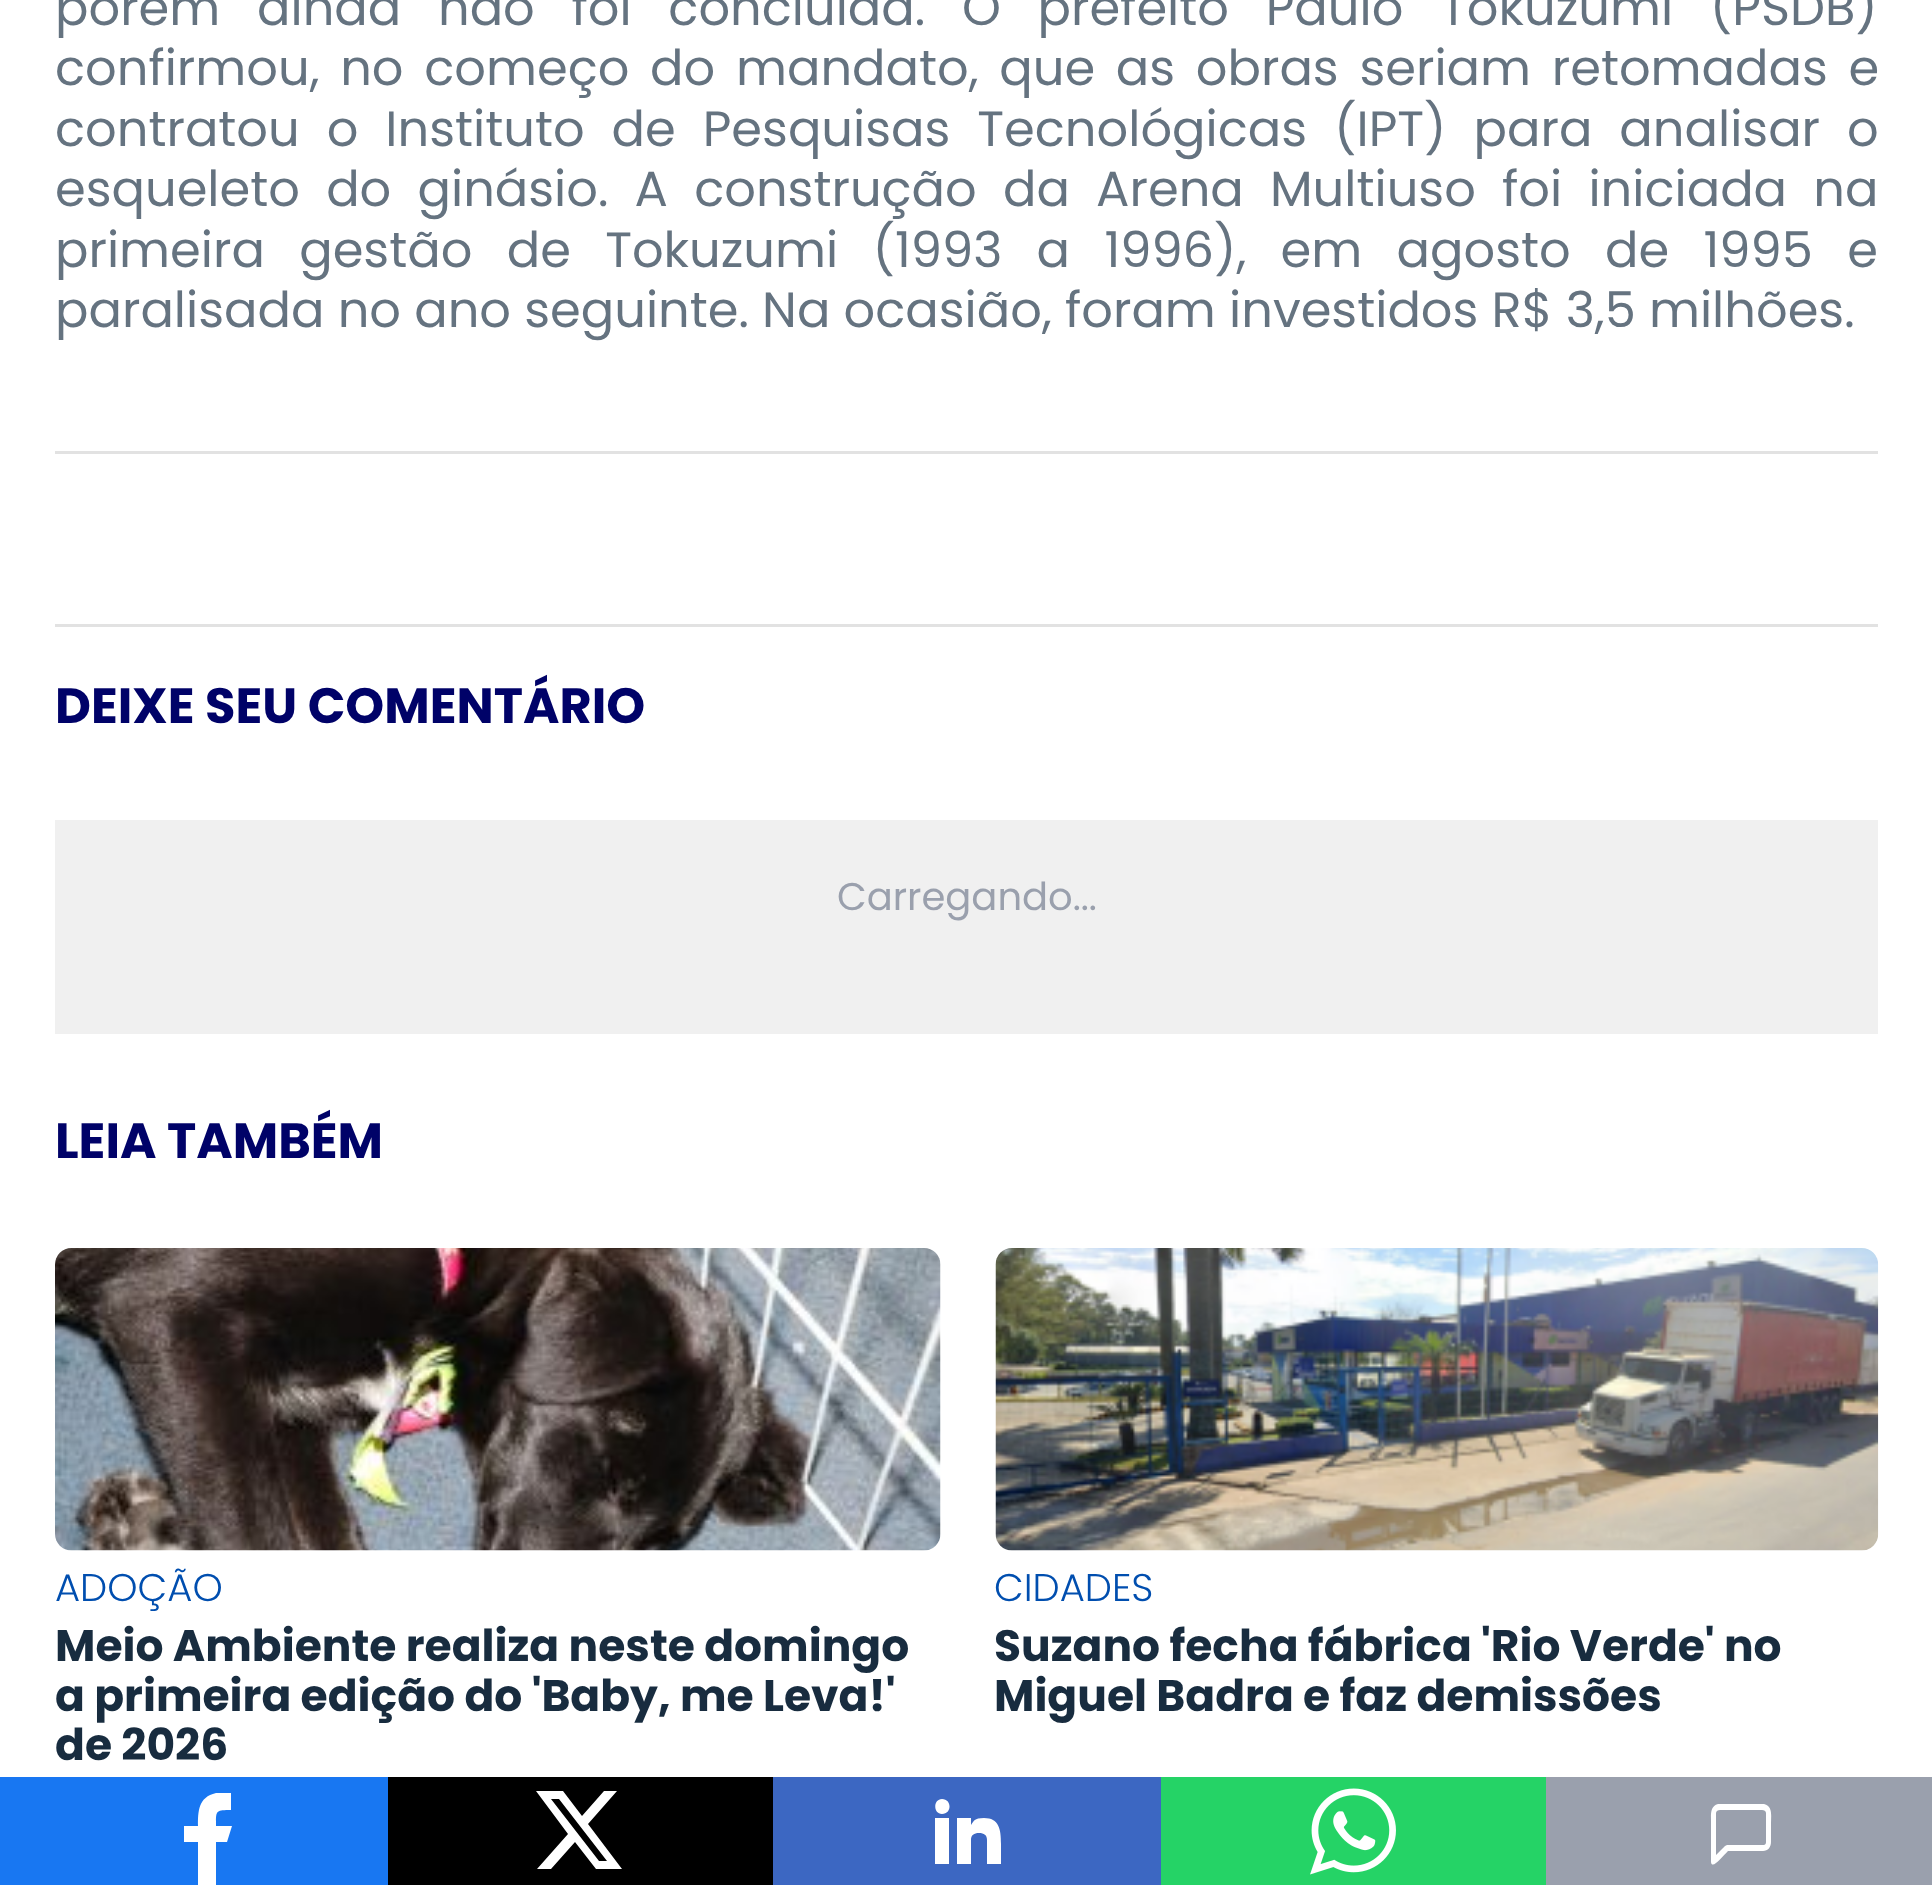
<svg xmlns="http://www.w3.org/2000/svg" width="1932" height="1885">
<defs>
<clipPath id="clip1"><rect x="138" y="1777" width="110" height="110"/></clipPath>
<clipPath id="clip2"><rect x="913" y="1777" width="110" height="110"/></clipPath>
<clipPath id="clip3"><rect x="1686" y="1777" width="110" height="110"/></clipPath>
</defs>
<rect width="100%" height="100%" fill="#fff"/>
<text x="55" y="25" word-spacing="23.5" style="font-family:Poppins;font-size:49.5px;fill:#657380">porém ainda não foi concluída. O prefeito Paulo Tokuzumi (PSDB)</text>
<text x="55" y="85" word-spacing="7.5" style="font-family:Poppins;font-size:49.5px;fill:#657380">confirmou, no começo do mandato, que as obras seriam retomadas e</text>
<text x="55" y="146" word-spacing="13.75" style="font-family:Poppins;font-size:49.5px;fill:#657380">contratou o Instituto de Pesquisas Tecnológicas (IPT) para analisar o</text>
<text x="55" y="206" word-spacing="13" style="font-family:Poppins;font-size:49.5px;fill:#657380">esqueleto do ginásio. A construção da Arena Multiuso foi iniciada na</text>
<text x="55" y="267" word-spacing="21.1" style="font-family:Poppins;font-size:49.5px;fill:#657380">primeira gestão de Tokuzumi (1993 a 1996), em agosto de 1995 e</text>
<text x="55" y="327" style="font-family:Poppins;font-size:49.5px;fill:#657380">paralisada no ano seguinte. Na ocasião, foram investidos R$ 3,5 milhões.</text>
<rect x="55" y="451" width="1823" height="3" fill="#e2e2e2"/>
<rect x="55" y="624" width="1823" height="3" fill="#e2e2e2"/>
<text x="55" y="723" style="font-family:Poppins;font-size:49.5px;font-weight:bold;fill:#000268">DEIXE SEU COMENTÁRIO</text>
<rect x="55" y="820" width="1823" height="214" fill="#f0f0f0"/>
<text x="837" y="910" style="font-family:Poppins;font-size:38.5px;fill:#9aa0ad">Carregando...</text>
<text x="55" y="1158" style="font-family:Poppins;font-size:49.5px;font-weight:bold;fill:#000268">LEIA TAMBÉM</text>
<image x="55" y="1248" width="886" height="303" href="media/1.png"/>
<text x="55" y="1601" style="font-family:Poppins;font-size:38.5px;font-weight:300;fill:#004eaf">ADOÇÃO</text>
<text x="55" y="1661" style="font-family:Poppins;font-size:44px;font-weight:bold;fill:#182c3f">Meio Ambiente realiza neste domingo</text>
<text x="55" y="1711" style="font-family:Poppins;font-size:44px;font-weight:bold;fill:#182c3f">a primeira edição do 'Baby, me Leva!'</text>
<text x="55" y="1760" style="font-family:Poppins;font-size:44px;font-weight:bold;fill:#182c3f">de 2026</text>
<image x="995" y="1248" width="884" height="303" href="media/2.png"/>
<text x="994" y="1601" style="font-family:Poppins;font-size:38.5px;font-weight:300;fill:#004eaf">CIDADES</text>
<text x="994" y="1661" style="font-family:Poppins;font-size:44px;font-weight:bold;fill:#182c3f">Suzano fecha fábrica 'Rio Verde' no</text>
<text x="994" y="1711" style="font-family:Poppins;font-size:44px;font-weight:bold;fill:#182c3f">Miguel Badra e faz demissões</text>
<rect y="1777" width="388" height="108" fill="#1877f2"/>
<rect x="184" y="1793" width="48" height="92" fill="#fff"/>
<g clip-path="url(#clip1)">
<path d="M138 1776v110h60v-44h-14v-16h14c0-14 0-29 18-33h15v17c-16 0-15 1-15 16h16l-5 16h-11v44h32v-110z" fill="#1877f2" fill-rule="evenodd"/>
</g>
<rect x="388" y="1777" width="385" height="108" fill="#000"/>
<path d="M604 1791h13l-29 33l34 45h-26l-21-27l-24 27h-14l31-35l-32-43h27l19 25zm-5 70h8l-48-62h-8z" fill="#fff"/>
<rect x="773" y="1777" width="388" height="108" fill="#3c67c2"/>
<rect x="935" y="1799" width="66" height="65" fill="#fff"/>
<g clip-path="url(#clip2)">
<path d="M913 1776v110h110v-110zm36 88h-14v-46h14zm-7-50c-9 0-9-15 0-15c10 0 10 15 0 15zm59 50h-14v-24c0-5-3-7-8-7c-5 0-8 2-8 7v24h-14v-46h14v7c3-4 3-7 13-7c15 0 17 11 17 26z" fill="#3c67c2" fill-rule="evenodd"/>
</g>
<rect x="1161" y="1777" width="385" height="108" fill="#25d366"/>
<rect x="1310" y="1788" width="86" height="87" fill="#fff"/>
<image x="1298" y="1777" width="110" height="108" href="media/3.png"/>
<rect x="1546" y="1777" width="386" height="108" fill="#9aa0ad"/>
<rect x="1710" y="1804" width="62" height="61" fill="#fff"/>
<g clip-path="url(#clip3)">
<path d="M1686 1776v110h110v-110zm85 66c0 5-3 9-8 9h-35c-6 6-16 19-17 11v-41c0-6-1-15 7-17h46c9 2 7 12 7 19zm-5-29v29c0 3-2 3-3 3h-36l-2 1l-9 9v-42c0-2 2-3 4-3h42c2 0 4 1 4 3z" fill="#9aa0ad" fill-rule="evenodd"/>
</g>
</svg>
